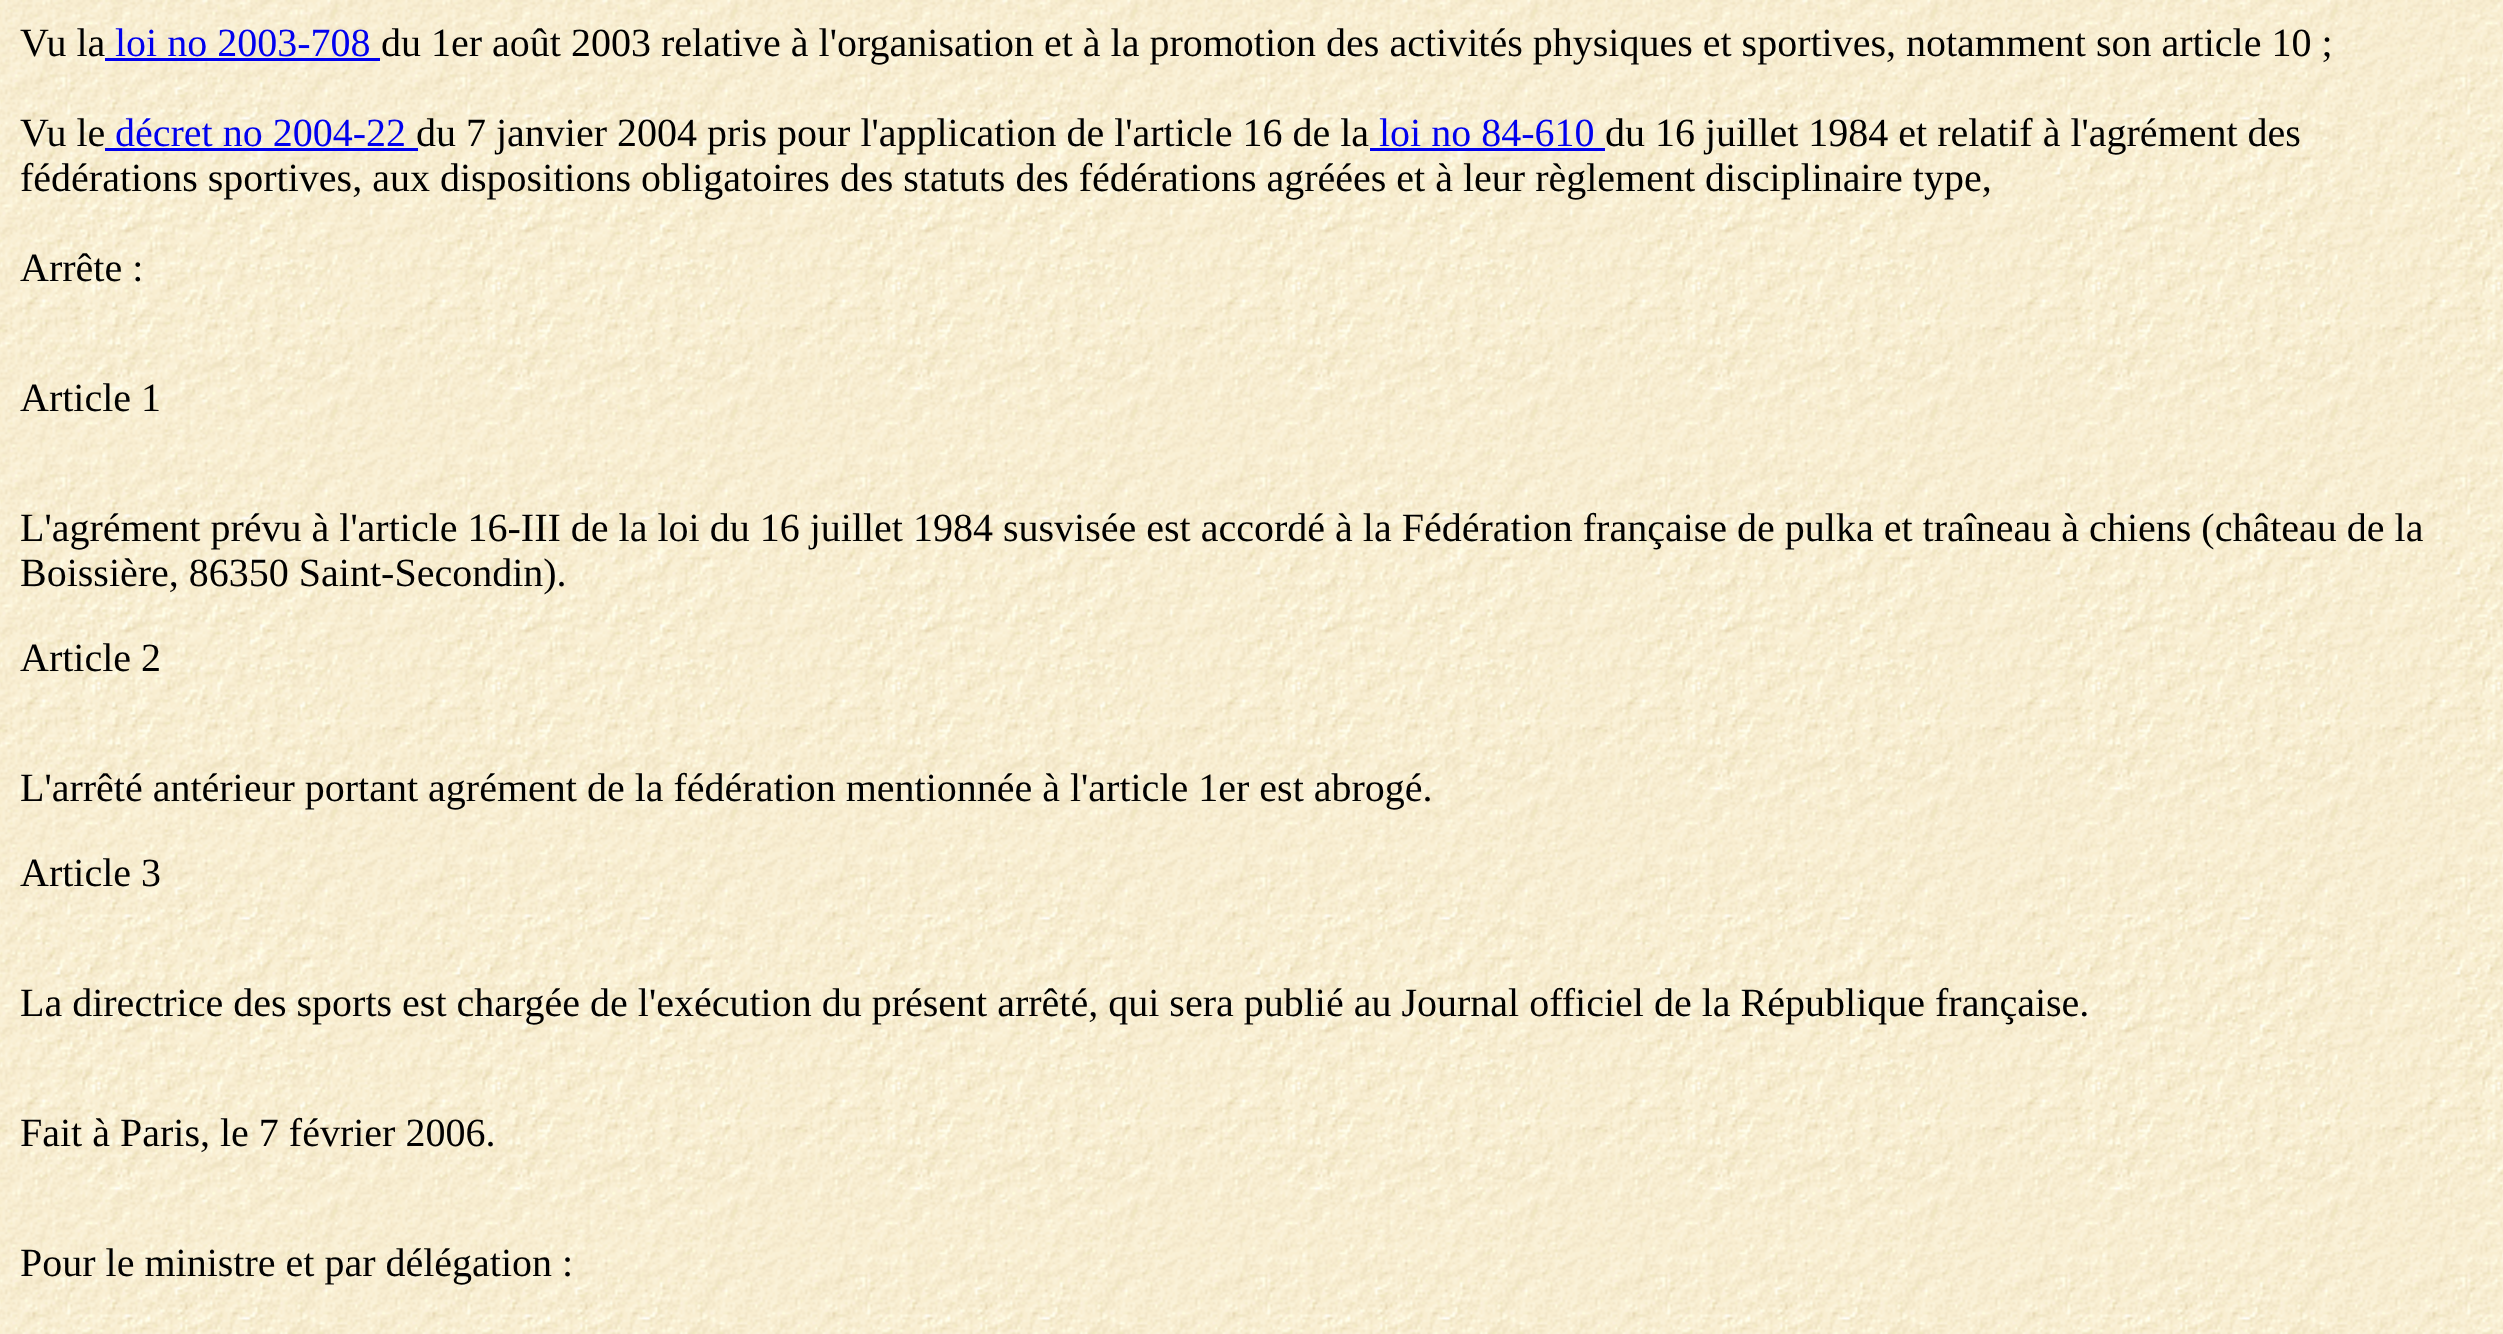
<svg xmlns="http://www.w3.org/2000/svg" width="2503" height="1334">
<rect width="100%" height="100%" fill="#fff"/>
<image x="0" y="0" width="2503" height="1334" href="media/1.png"/>
<text x="20" y="56" style="font-family:Liberation Serif;font-size:40px;fill:#000">Vu la</text>
<text x="115" y="56" style="font-family:Liberation Serif;font-size:40px;fill:#00e">loi no 2003-708</text>
<rect x="105" y="58" width="275" height="3" fill="#00e"/>
<text x="381" y="56" style="font-family:Liberation Serif;font-size:40px;fill:#000">du 1er août 2003 relative à l'organisation et à la promotion des activités physiques et sportives, notamment son article 10 ;</text>
<text x="20" y="146" style="font-family:Liberation Serif;font-size:40px;fill:#000">Vu le</text>
<text x="115" y="146" style="font-family:Liberation Serif;font-size:40px;fill:#00e">décret no 2004-22</text>
<rect x="105" y="148" width="313" height="3" fill="#00e"/>
<text x="416" y="146" style="font-family:Liberation Serif;font-size:40px;fill:#000">du 7 janvier 2004 pris pour l'application de l'article 16 de la</text>
<text x="1379" y="146" style="font-family:Liberation Serif;font-size:40px;fill:#00e">loi no 84-610</text>
<rect x="1370" y="148" width="235" height="3" fill="#00e"/>
<text x="1605" y="146" style="font-family:Liberation Serif;font-size:40px;fill:#000">du 16 juillet 1984 et relatif à l'agrément des</text>
<text x="20" y="191" style="font-family:Liberation Serif;font-size:40px;fill:#000">fédérations sportives, aux dispositions obligatoires des statuts des fédérations agréées et à leur règlement disciplinaire type,</text>
<text x="20" y="281" style="font-family:Liberation Serif;font-size:40px;fill:#000">Arrête :</text>
<text x="20" y="411" style="font-family:Liberation Serif;font-size:40px;fill:#000">Article 1</text>
<text x="20" y="541" style="font-family:Liberation Serif;font-size:40px;fill:#000">L'agrément prévu à l'article 16-III de la loi du 16 juillet 1984 susvisée est accordé à la Fédération française de pulka et traîneau à chiens (château de la</text>
<text x="20" y="586" style="font-family:Liberation Serif;font-size:40px;fill:#000">Boissière, 86350 Saint-Secondin).</text>
<text x="20" y="671" style="font-family:Liberation Serif;font-size:40px;fill:#000">Article 2</text>
<text x="20" y="801" style="font-family:Liberation Serif;font-size:40px;fill:#000">L'arrêté antérieur portant agrément de la fédération mentionnée à l'article 1er est abrogé.</text>
<text x="20" y="886" style="font-family:Liberation Serif;font-size:40px;fill:#000">Article 3</text>
<text x="20" y="1016" style="font-family:Liberation Serif;font-size:40px;fill:#000">La directrice des sports est chargée de l'exécution du présent arrêté, qui sera publié au Journal officiel de la République française.</text>
<text x="20" y="1146" style="font-family:Liberation Serif;font-size:40px;fill:#000">Fait à Paris, le 7 février 2006.</text>
<text x="20" y="1276" style="font-family:Liberation Serif;font-size:40px;fill:#000">Pour le ministre et par délégation :</text>
</svg>
